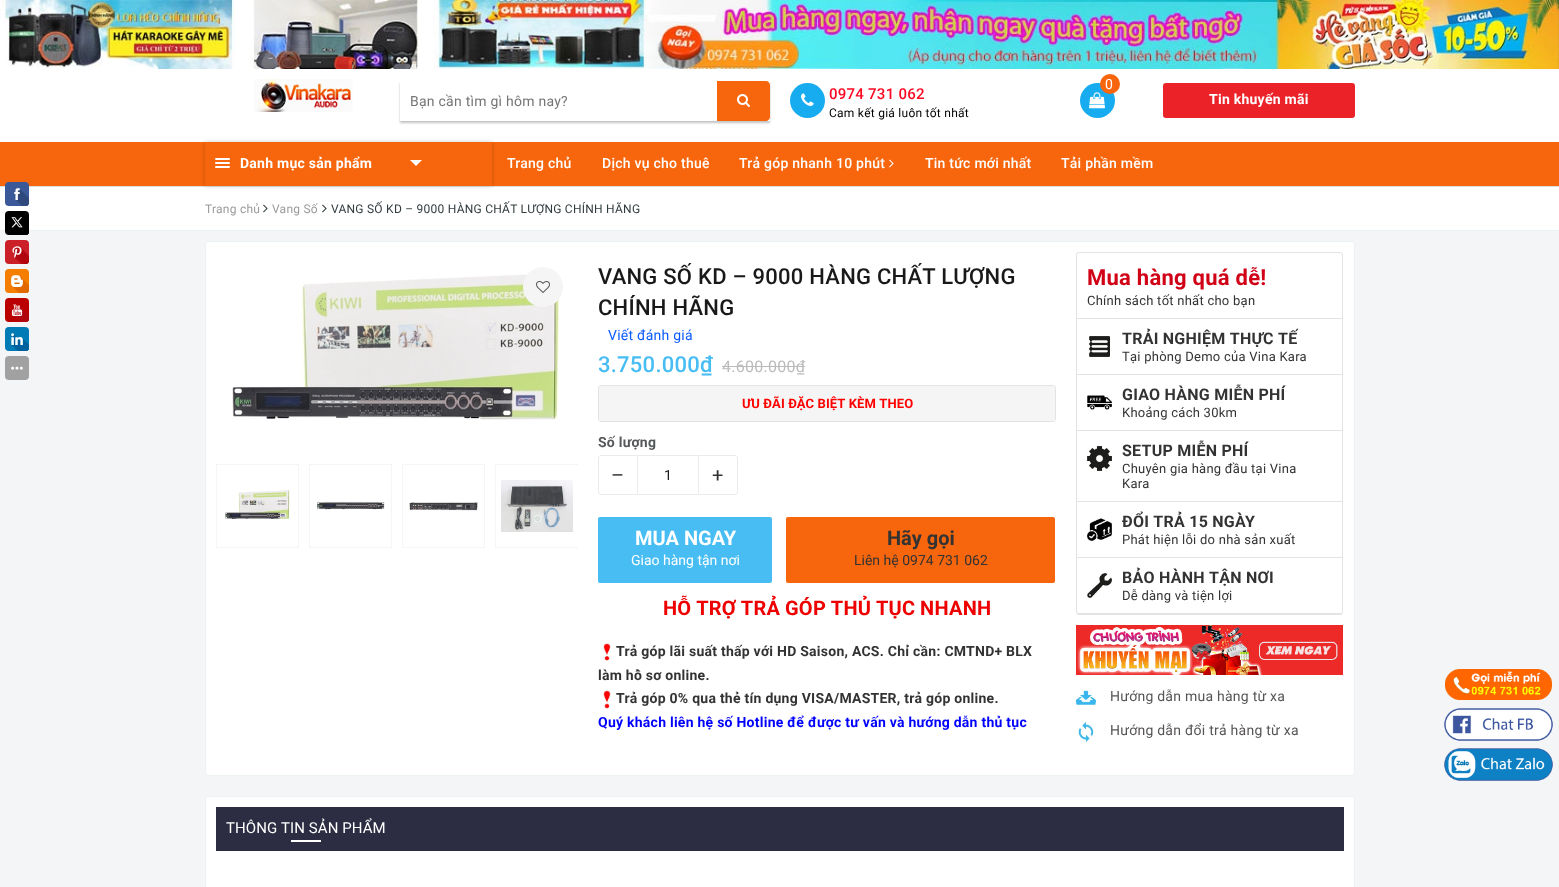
<svg xmlns="http://www.w3.org/2000/svg" width="1559" height="887">
<defs>
<clipPath id="clip1"><path d="M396 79h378v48h-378zm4 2h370v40h-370z" clip-rule="evenodd"/></clipPath>
<clipPath id="clip2"><rect x="216" y="464" width="362" height="84"/></clipPath>
</defs>
<rect width="100%" height="100%" fill="#f3f5f7"/>
<rect y="69" width="1559" height="73" fill="#fff"/>
<image x="0" y="0" width="1559" height="69" href="media/1.png"/>
<image x="254" y="79" width="99" height="33" href="media/2.png"/>
<g clip-path="url(#clip1)">
<rect x="400" y="83" width="370" height="40" fill="#0000003d" filter="blur(1px)"/>
</g>
<text x="410" y="106" style="font-family:Roboto;font-size:14px;letter-spacing:0.25px;fill:#757575">Bạn cần tìm gì hôm nay?</text>
<path d="M717 81h49c2 0 4 2 4 4v32c0 2-2 4-4 4h-49z" fill="#f7660c"/>
<image x="737" y="94" width="13" height="13" href="media/3.png"/>
<circle cx="1097.5" cy="100.5" r="17.5" fill="#17acf0"/>
<image x="1089" y="92" width="16" height="17" href="media/4.png"/>
<circle cx="1110" cy="84" r="10" fill="#f7660c"/>
<text x="1105" y="89" style="font-family:Roboto;font-size:14px;letter-spacing:0.25px;fill:#fff">0</text>
<circle cx="807.5" cy="100.5" r="17.5" fill="#17acf0"/>
<image x="801" y="93" width="13" height="13" href="media/5.png"/>
<text x="829" y="99" style="font-family:Roboto;font-size:15px;font-weight:500;letter-spacing:0.25px;fill:#fb0a21">0974 731 062</text>
<text x="829" y="117" style="font-family:Roboto;font-size:12px;letter-spacing:0.25px;fill:#000">Cam kết giá luôn tốt nhất</text>
<rect x="1163" y="83" width="192" height="35" rx="3" fill="#eb2329"/>
<text x="1209" y="104" style="font-family:Roboto;font-size:14px;font-weight:bold;letter-spacing:0.25px;fill:#fff">Tin khuyến mãi</text>
<rect y="142" width="1559" height="44" fill="#f7660c"/>
<rect y="186" width="1559" height="1" fill="#ddd"/>
<path d="M0 187h1559v41c0 1.5-1.5 3-3 3h-1553c-1.5 0-3-1.5-3-3z" fill="#fff"/>
<rect x="205" y="142" width="287" height="44" fill="#00000033" filter="blur(2px)"/>
<rect x="205" y="142" width="287" height="44" fill="#f7660c"/>
<rect x="215" y="158" width="15" height="2" rx="1" fill="#fff"/>
<rect x="215" y="162" width="15" height="2" rx="1" fill="#fff"/>
<rect x="215" y="166" width="15" height="2" rx="1" fill="#fff"/>
<text x="240" y="168" style="font-family:Roboto;font-size:14px;font-weight:bold;letter-spacing:0.25px;fill:#fff">Danh mục sản phẩm</text>
<path d="M410 160h12l-6 6z" fill="#fff"/>
<text x="507" y="168" style="font-family:Roboto;font-size:14px;font-weight:500;letter-spacing:0.25px;fill:#fff">Trang chủ</text>
<text x="602" y="168" style="font-family:Roboto;font-size:14px;font-weight:500;letter-spacing:0.25px;fill:#fff">Dịch vụ cho thuê</text>
<text x="739" y="168" style="font-family:Roboto;font-size:14px;font-weight:500;letter-spacing:0.25px;fill:#fff">Trả góp nhanh 10 phút</text>
<image x="889" y="159" width="5" height="9" href="media/6.png"/>
<text x="925" y="168" style="font-family:Roboto;font-size:14px;font-weight:500;letter-spacing:0.25px;fill:#fff">Tin tức mới nhất</text>
<text x="1061" y="168" style="font-family:Roboto;font-size:14px;font-weight:500;letter-spacing:0.25px;fill:#fff">Tải phần mềm</text>
<rect x="2" y="230" width="1556" height="1" fill="#ecf2f4"/>
<image x="5" y="182" width="24" height="198" href="media/7.png"/>
<text x="205" y="213" style="font-family:Roboto;font-size:12px;letter-spacing:0.25px;fill:#9b9b9b">Trang chủ</text>
<image x="263" y="204" width="5" height="9" href="media/8.png"/>
<text x="272" y="213" style="font-family:Roboto;font-size:12px;letter-spacing:0.25px;fill:#9b9b9b">Vang Số</text>
<image x="322" y="204" width="5" height="9" href="media/8.png"/>
<text x="331" y="213" style="font-family:Roboto;font-size:12px;letter-spacing:0.25px;fill:#323c3f">VANG SỐ KD – 9000 HÀNG CHẤT LƯỢNG CHÍNH HÃNG</text>
<rect x="205.5" y="241.5" width="1149" height="534" rx="2.5" fill="#fff" stroke="#ecf2f4"/>
<image x="232" y="273" width="328" height="147" href="media/10.png"/>
<circle cx="543" cy="287" r="20" fill="#f5f5f5"/>
<image x="536" y="281" width="14" height="12" href="media/9.png"/>
<rect x="216.5" y="464.5" width="82" height="83" fill="none" stroke="#f5f5f5"/>
<image x="225" y="490" width="65" height="30" href="media/11.png"/>
<rect x="309.5" y="464.5" width="82" height="83" fill="none" stroke="#f5f5f5"/>
<image x="317" y="501" width="68" height="9" href="media/12.png"/>
<rect x="402.5" y="464.5" width="82" height="83" fill="none" stroke="#f5f5f5"/>
<image x="409" y="502" width="69" height="9" href="media/13.png"/>
<g clip-path="url(#clip2)">
<rect x="495.5" y="464.5" width="83" height="83" fill="none" stroke="#f5f5f5"/>
</g>
<image x="501" y="480" width="72" height="52" href="media/14.png"/>
<text x="598" y="284" style="font-family:Roboto;font-size:22px;font-weight:500;letter-spacing:0.25px;fill:#191919">VANG SỐ KD – 9000 HÀNG CHẤT LƯỢNG</text>
<text x="598" y="315" style="font-family:Roboto;font-size:22px;font-weight:500;letter-spacing:0.25px;fill:#191919">CHÍNH HÃNG</text>
<text x="608" y="340" style="font-family:Roboto;font-size:14px;letter-spacing:0.25px;fill:#0a5bff">Viết đánh giá</text>
<text x="598" y="372" style="font-family:Roboto;font-size:22px;font-weight:500;letter-spacing:0.25px;fill:#47bdf3">3.750.000₫</text>
<text x="722" y="372" style="font-family:Roboto;font-size:16px;letter-spacing:0.25px;fill:#bbb">4.600.000₫</text>
<rect x="722" y="366" width="83" height="1" fill="#bbb"/>
<rect x="598.5" y="385.5" width="457" height="36" rx="2.5" fill="none" stroke="#e3e3e3"/>
<path d="M602 386h450c1.5 0 3 1.5 3 3v32h-456v-32c0-1.5 1.5-3 3-3z" fill="#f5f5f5"/>
<text x="742" y="408" style="font-family:Roboto;font-size:13px;font-weight:bold;letter-spacing:0.1px;fill:#f00">ƯU ĐÃI ĐẶC BIỆT KÈM THEO</text>
<text x="598" y="447" style="font-family:Roboto;font-size:14px;font-weight:bold;letter-spacing:0.25px;fill:#55595c">Số lượng</text>
<path d="M601 455.5h36.5v39h-36.5c-1.5 0-2.5-1-2.5-2.5v-34c0-1.5 1-2.5 2.5-2.5z" fill="none" stroke="#ebebeb"/>
<text x="611" y="482" style="font-family:Roboto;font-size:20px;letter-spacing:0.25px;fill:#333">–</text>
<rect x="638" y="455" width="60" height="1" fill="#ebebeb"/>
<rect x="638" y="494" width="60" height="1" fill="#ebebeb"/>
<text x="664" y="480" style="font-family:Roboto;font-size:14px;letter-spacing:0.25px;fill:#191919">1</text>
<path d="M698.5 455.5h36.5c1.5 0 2.5 1 2.5 2.5v34c0 1.5-1 2.5-2.5 2.5h-36.5z" fill="none" stroke="#ebebeb"/>
<text x="712" y="482" style="font-family:Roboto;font-size:20px;letter-spacing:0.25px;fill:#333">+</text>
<rect x="598" y="517" width="174" height="66" rx="2" fill="#47bdf3"/>
<text x="635" y="545" style="font-family:Roboto;font-size:20px;font-weight:bold;fill:#fff">MUA NGAY</text>
<text x="631" y="565" style="font-family:Roboto;font-size:14px;fill:#fff">Giao hàng tận nơi</text>
<rect x="786" y="517" width="269" height="66" rx="2" fill="#f7660c"/>
<text x="887" y="545" style="font-family:Roboto;font-size:20px;font-weight:bold;fill:#333">Hãy gọi</text>
<text x="854" y="565" style="font-family:Roboto;font-size:14px;fill:#333">Liên hệ 0974 731 062</text>
<text x="663" y="615" word-spacing="-0.5" style="font-family:Roboto;font-size:20px;font-weight:bold;letter-spacing:0.25px;fill:#e00">HỖ TRỢ TRẢ GÓP THỦ TỤC NHANH</text>
<image x="603" y="643" width="8" height="18" href="media/15.png"/>
<text x="616" y="656" style="font-family:Roboto;font-size:14px;font-weight:bold;letter-spacing:0.25px;fill:#333">Trả góp lãi suất thấp với HD Saison, ACS. Chỉ cần: CMTND+ BLX</text>
<text x="598" y="680" style="font-family:Roboto;font-size:14px;font-weight:bold;letter-spacing:0.25px;fill:#333">làm hồ sơ online.</text>
<image x="603" y="690" width="8" height="19" href="media/16.png"/>
<text x="616" y="703" style="font-family:Roboto;font-size:14px;font-weight:bold;letter-spacing:0.25px;fill:#333">Trả góp 0% qua thẻ tín dụng VISA/MASTER, trả góp online.</text>
<text x="598" y="727" style="font-family:Roboto;font-size:14px;font-weight:bold;letter-spacing:0.25px;fill:#00f">Quý khách liên hệ số Hotline để được tư vấn và hướng dẫn thủ tục</text>
<rect x="1076.5" y="252.5" width="266" height="362" rx="2.5" fill="none" stroke="#e3e3e3"/>
<rect x="1077" y="318" width="265" height="1" fill="#e3e3e3"/>
<text x="1087" y="285" style="font-family:Roboto;font-size:22px;font-weight:bold;letter-spacing:0.25px;fill:#d10216">Mua hàng quá dễ!</text>
<text x="1087" y="305" style="font-family:Roboto;font-size:13px;letter-spacing:0.25px;fill:#333">Chính sách tốt nhất cho bạn</text>
<rect x="1077" y="374" width="265" height="1" fill="#e3e3e3"/>
<image x="1089" y="335" width="21" height="22" href="media/17.png"/>
<text x="1122" y="344" style="font-family:Roboto;font-size:16px;font-weight:bold;letter-spacing:0.25px;fill:#333">TRẢI NGHIỆM THỰC TẾ</text>
<text x="1122" y="361" style="font-family:Roboto;font-size:13px;letter-spacing:0.25px;fill:#333">Tại phòng Demo của Vina Kara</text>
<rect x="1077" y="430" width="265" height="1" fill="#e3e3e3"/>
<text x="1122" y="400" style="font-family:Roboto;font-size:16px;font-weight:bold;letter-spacing:0.25px;fill:#333">GIAO HÀNG MIỄN PHÍ</text>
<image x="1087" y="395" width="25" height="15" href="media/18.png"/>
<text x="1122" y="417" style="font-family:Roboto;font-size:13px;letter-spacing:0.25px;fill:#333">Khoảng cách 30km</text>
<rect x="1077" y="501" width="265" height="1" fill="#e3e3e3"/>
<image x="1087" y="446" width="25" height="25" href="media/19.png"/>
<text x="1122" y="456" style="font-family:Roboto;font-size:16px;font-weight:bold;letter-spacing:0.25px;fill:#333">SETUP MIỄN PHÍ</text>
<text x="1122" y="473" style="font-family:Roboto;font-size:13px;letter-spacing:0.25px;fill:#333">Chuyên gia hàng đầu tại Vina</text>
<text x="1122" y="488" style="font-family:Roboto;font-size:13px;letter-spacing:0.25px;fill:#333">Kara</text>
<rect x="1077" y="557" width="265" height="1" fill="#e3e3e3"/>
<image x="1087" y="518" width="25" height="23" href="media/20.png"/>
<text x="1122" y="527" style="font-family:Roboto;font-size:16px;font-weight:bold;letter-spacing:0.25px;fill:#333">ĐỔI TRẢ 15 NGÀY</text>
<text x="1122" y="544" style="font-family:Roboto;font-size:13px;letter-spacing:0.25px;fill:#333">Phát hiện lỗi do nhà sản xuất</text>
<rect x="1077" y="613" width="265" height="1" fill="#e3e3e3"/>
<image x="1087" y="573" width="25" height="25" href="media/21.png"/>
<text x="1122" y="583" style="font-family:Roboto;font-size:16px;font-weight:bold;letter-spacing:0.25px;fill:#333">BẢO HÀNH TẬN NƠI</text>
<text x="1122" y="600" style="font-family:Roboto;font-size:13px;letter-spacing:0.25px;fill:#333">Dễ dàng và tiện lợi</text>
<image x="1076" y="625" width="267" height="50" href="media/22.png"/>
<image x="1076" y="690" width="20" height="16" href="media/23.png"/>
<text x="1110" y="701" style="font-family:Roboto;font-size:14px;letter-spacing:0.25px;fill:#575454">Hướng dẫn mua hàng từ xa</text>
<image x="1078" y="722" width="16" height="20" href="media/24.png"/>
<text x="1110" y="735" style="font-family:Roboto;font-size:14px;letter-spacing:0.25px;fill:#575454">Hướng dẫn đổi trả hàng từ xa</text>
<rect x="205.5" y="796.5" width="1149" height="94" rx="2.5" fill="#fff" stroke="#ecf2f4"/>
<rect x="216" y="807" width="1128" height="44" fill="#2c2c43"/>
<text x="226" y="833" style="font-family:Roboto;font-size:15px;letter-spacing:0.1px;fill:#fff">THÔNG TIN SẢN PHẨM</text>
<rect x="291" y="840" width="30" height="2" fill="#fff"/>
<image x="1445" y="669" width="107" height="31" href="media/25.png"/>
<image x="1444" y="708" width="109" height="33" href="media/26.png"/>
<image x="1444" y="748" width="109" height="33" href="media/27.png"/>
</svg>
